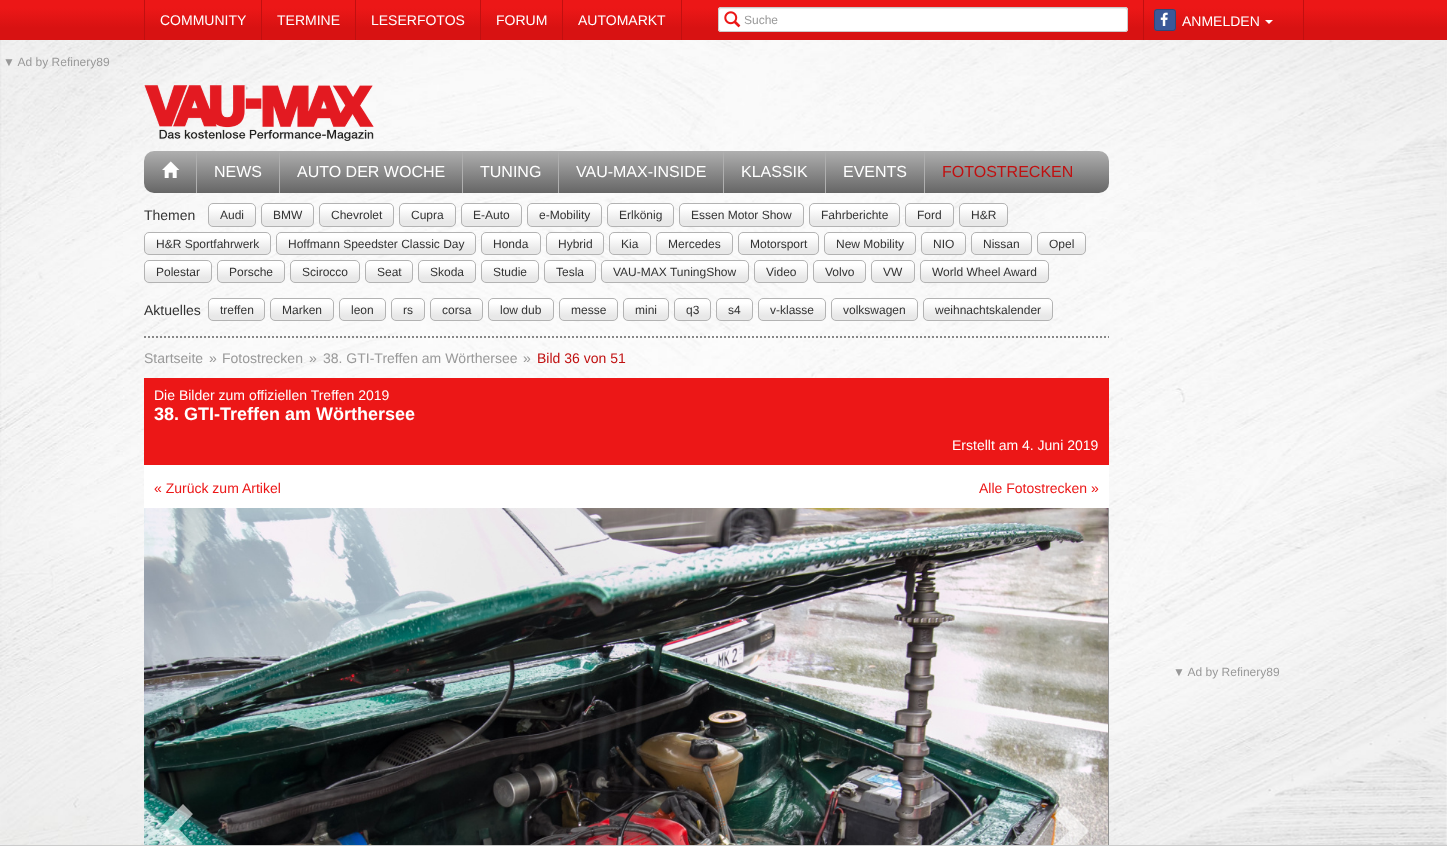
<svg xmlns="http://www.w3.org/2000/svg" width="1447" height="856">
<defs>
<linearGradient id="g1" gradientUnits="userSpaceOnUse" x1="724" y1="0" x2="724" y2="40"><stop offset="0.2" stop-color="#ec1717"/><stop offset="0.7" stop-color="#d81212"/></linearGradient>
<linearGradient id="g2" gradientUnits="userSpaceOnUse" x1="627" y1="151" x2="627" y2="193"><stop offset="0" stop-color="#afafaf"/><stop offset="1" stop-color="#666"/></linearGradient>
<clipPath id="clip1"><rect x="208" y="203" width="48" height="24" rx="5"/></clipPath>
<linearGradient id="g3" gradientUnits="userSpaceOnUse" x1="232" y1="204" x2="232" y2="226"><stop offset="0.2" stop-color="#fff"/><stop offset="0.8" stop-color="#e8e8e8"/></linearGradient>
<clipPath id="clip2"><rect x="261" y="203" width="53" height="24" rx="5"/></clipPath>
<linearGradient id="g4" gradientUnits="userSpaceOnUse" x1="288" y1="204" x2="288" y2="226"><stop offset="0.2" stop-color="#fff"/><stop offset="0.8" stop-color="#e8e8e8"/></linearGradient>
<clipPath id="clip3"><rect x="319" y="203" width="75" height="24" rx="5"/></clipPath>
<linearGradient id="g5" gradientUnits="userSpaceOnUse" x1="357" y1="204" x2="357" y2="226"><stop offset="0.2" stop-color="#fff"/><stop offset="0.8" stop-color="#e8e8e8"/></linearGradient>
<clipPath id="clip4"><rect x="399" y="203" width="57" height="24" rx="5"/></clipPath>
<linearGradient id="g6" gradientUnits="userSpaceOnUse" x1="428" y1="204" x2="428" y2="226"><stop offset="0.2" stop-color="#fff"/><stop offset="0.8" stop-color="#e8e8e8"/></linearGradient>
<clipPath id="clip5"><rect x="461" y="203" width="61" height="24" rx="5"/></clipPath>
<linearGradient id="g7" gradientUnits="userSpaceOnUse" x1="492" y1="204" x2="492" y2="226"><stop offset="0.2" stop-color="#fff"/><stop offset="0.8" stop-color="#e8e8e8"/></linearGradient>
<clipPath id="clip6"><rect x="527" y="203" width="75" height="24" rx="5"/></clipPath>
<linearGradient id="g8" gradientUnits="userSpaceOnUse" x1="565" y1="204" x2="565" y2="226"><stop offset="0.2" stop-color="#fff"/><stop offset="0.8" stop-color="#e8e8e8"/></linearGradient>
<clipPath id="clip7"><rect x="607" y="203" width="67" height="24" rx="5"/></clipPath>
<linearGradient id="g9" gradientUnits="userSpaceOnUse" x1="641" y1="204" x2="641" y2="226"><stop offset="0.2" stop-color="#fff"/><stop offset="0.8" stop-color="#e8e8e8"/></linearGradient>
<clipPath id="clip8"><rect x="679" y="203" width="125" height="24" rx="5"/></clipPath>
<linearGradient id="g10" gradientUnits="userSpaceOnUse" x1="742" y1="204" x2="742" y2="226"><stop offset="0.2" stop-color="#fff"/><stop offset="0.8" stop-color="#e8e8e8"/></linearGradient>
<clipPath id="clip9"><rect x="809" y="203" width="91" height="24" rx="5"/></clipPath>
<linearGradient id="g11" gradientUnits="userSpaceOnUse" x1="855" y1="204" x2="855" y2="226"><stop offset="0.2" stop-color="#fff"/><stop offset="0.8" stop-color="#e8e8e8"/></linearGradient>
<clipPath id="clip10"><rect x="905" y="203" width="49" height="24" rx="5"/></clipPath>
<linearGradient id="g12" gradientUnits="userSpaceOnUse" x1="930" y1="204" x2="930" y2="226"><stop offset="0.2" stop-color="#fff"/><stop offset="0.8" stop-color="#e8e8e8"/></linearGradient>
<clipPath id="clip11"><rect x="959" y="203" width="49" height="24" rx="5"/></clipPath>
<linearGradient id="g13" gradientUnits="userSpaceOnUse" x1="984" y1="204" x2="984" y2="226"><stop offset="0.2" stop-color="#fff"/><stop offset="0.8" stop-color="#e8e8e8"/></linearGradient>
<clipPath id="clip12"><rect x="144" y="232" width="127" height="23" rx="5"/></clipPath>
<linearGradient id="g14" gradientUnits="userSpaceOnUse" x1="208" y1="233" x2="208" y2="254"><stop offset="0.2" stop-color="#fff"/><stop offset="0.8" stop-color="#e8e8e8"/></linearGradient>
<clipPath id="clip13"><rect x="276" y="232" width="200" height="23" rx="5"/></clipPath>
<linearGradient id="g15" gradientUnits="userSpaceOnUse" x1="376" y1="233" x2="376" y2="254"><stop offset="0.2" stop-color="#fff"/><stop offset="0.8" stop-color="#e8e8e8"/></linearGradient>
<clipPath id="clip14"><rect x="481" y="232" width="60" height="23" rx="5"/></clipPath>
<linearGradient id="g16" gradientUnits="userSpaceOnUse" x1="511" y1="233" x2="511" y2="254"><stop offset="0.2" stop-color="#fff"/><stop offset="0.8" stop-color="#e8e8e8"/></linearGradient>
<clipPath id="clip15"><rect x="546" y="232" width="58" height="23" rx="5"/></clipPath>
<linearGradient id="g17" gradientUnits="userSpaceOnUse" x1="575" y1="233" x2="575" y2="254"><stop offset="0.2" stop-color="#fff"/><stop offset="0.8" stop-color="#e8e8e8"/></linearGradient>
<clipPath id="clip16"><rect x="609" y="232" width="42" height="23" rx="5"/></clipPath>
<linearGradient id="g18" gradientUnits="userSpaceOnUse" x1="630" y1="233" x2="630" y2="254"><stop offset="0.2" stop-color="#fff"/><stop offset="0.8" stop-color="#e8e8e8"/></linearGradient>
<clipPath id="clip17"><rect x="656" y="232" width="77" height="23" rx="5"/></clipPath>
<linearGradient id="g19" gradientUnits="userSpaceOnUse" x1="695" y1="233" x2="695" y2="254"><stop offset="0.2" stop-color="#fff"/><stop offset="0.8" stop-color="#e8e8e8"/></linearGradient>
<clipPath id="clip18"><rect x="738" y="232" width="81" height="23" rx="5"/></clipPath>
<linearGradient id="g20" gradientUnits="userSpaceOnUse" x1="779" y1="233" x2="779" y2="254"><stop offset="0.2" stop-color="#fff"/><stop offset="0.8" stop-color="#e8e8e8"/></linearGradient>
<clipPath id="clip19"><rect x="824" y="232" width="92" height="23" rx="5"/></clipPath>
<linearGradient id="g21" gradientUnits="userSpaceOnUse" x1="870" y1="233" x2="870" y2="254"><stop offset="0.2" stop-color="#fff"/><stop offset="0.8" stop-color="#e8e8e8"/></linearGradient>
<clipPath id="clip20"><rect x="921" y="232" width="45" height="23" rx="5"/></clipPath>
<linearGradient id="g22" gradientUnits="userSpaceOnUse" x1="944" y1="233" x2="944" y2="254"><stop offset="0.2" stop-color="#fff"/><stop offset="0.8" stop-color="#e8e8e8"/></linearGradient>
<clipPath id="clip21"><rect x="971" y="232" width="61" height="23" rx="5"/></clipPath>
<linearGradient id="g23" gradientUnits="userSpaceOnUse" x1="1002" y1="233" x2="1002" y2="254"><stop offset="0.2" stop-color="#fff"/><stop offset="0.8" stop-color="#e8e8e8"/></linearGradient>
<clipPath id="clip22"><rect x="1037" y="232" width="49" height="23" rx="5"/></clipPath>
<linearGradient id="g24" gradientUnits="userSpaceOnUse" x1="1062" y1="233" x2="1062" y2="254"><stop offset="0.2" stop-color="#fff"/><stop offset="0.8" stop-color="#e8e8e8"/></linearGradient>
<clipPath id="clip23"><rect x="144" y="260" width="68" height="23" rx="5"/></clipPath>
<linearGradient id="g25" gradientUnits="userSpaceOnUse" x1="178" y1="261" x2="178" y2="282"><stop offset="0.2" stop-color="#fff"/><stop offset="0.8" stop-color="#e8e8e8"/></linearGradient>
<clipPath id="clip24"><rect x="217" y="260" width="68" height="23" rx="5"/></clipPath>
<linearGradient id="g26" gradientUnits="userSpaceOnUse" x1="251" y1="261" x2="251" y2="282"><stop offset="0.2" stop-color="#fff"/><stop offset="0.8" stop-color="#e8e8e8"/></linearGradient>
<clipPath id="clip25"><rect x="290" y="260" width="70" height="23" rx="5"/></clipPath>
<linearGradient id="g27" gradientUnits="userSpaceOnUse" x1="325" y1="261" x2="325" y2="282"><stop offset="0.2" stop-color="#fff"/><stop offset="0.8" stop-color="#e8e8e8"/></linearGradient>
<clipPath id="clip26"><rect x="365" y="260" width="48" height="23" rx="5"/></clipPath>
<linearGradient id="g28" gradientUnits="userSpaceOnUse" x1="389" y1="261" x2="389" y2="282"><stop offset="0.2" stop-color="#fff"/><stop offset="0.8" stop-color="#e8e8e8"/></linearGradient>
<clipPath id="clip27"><rect x="418" y="260" width="58" height="23" rx="5"/></clipPath>
<linearGradient id="g29" gradientUnits="userSpaceOnUse" x1="447" y1="261" x2="447" y2="282"><stop offset="0.2" stop-color="#fff"/><stop offset="0.8" stop-color="#e8e8e8"/></linearGradient>
<clipPath id="clip28"><rect x="481" y="260" width="58" height="23" rx="5"/></clipPath>
<linearGradient id="g30" gradientUnits="userSpaceOnUse" x1="510" y1="261" x2="510" y2="282"><stop offset="0.2" stop-color="#fff"/><stop offset="0.8" stop-color="#e8e8e8"/></linearGradient>
<clipPath id="clip29"><rect x="544" y="260" width="52" height="23" rx="5"/></clipPath>
<linearGradient id="g31" gradientUnits="userSpaceOnUse" x1="570" y1="261" x2="570" y2="282"><stop offset="0.2" stop-color="#fff"/><stop offset="0.8" stop-color="#e8e8e8"/></linearGradient>
<clipPath id="clip30"><rect x="601" y="260" width="148" height="23" rx="5"/></clipPath>
<linearGradient id="g32" gradientUnits="userSpaceOnUse" x1="675" y1="261" x2="675" y2="282"><stop offset="0.2" stop-color="#fff"/><stop offset="0.8" stop-color="#e8e8e8"/></linearGradient>
<clipPath id="clip31"><rect x="754" y="260" width="54" height="23" rx="5"/></clipPath>
<linearGradient id="g33" gradientUnits="userSpaceOnUse" x1="781" y1="261" x2="781" y2="282"><stop offset="0.2" stop-color="#fff"/><stop offset="0.8" stop-color="#e8e8e8"/></linearGradient>
<clipPath id="clip32"><rect x="813" y="260" width="53" height="23" rx="5"/></clipPath>
<linearGradient id="g34" gradientUnits="userSpaceOnUse" x1="840" y1="261" x2="840" y2="282"><stop offset="0.2" stop-color="#fff"/><stop offset="0.8" stop-color="#e8e8e8"/></linearGradient>
<clipPath id="clip33"><rect x="871" y="260" width="44" height="23" rx="5"/></clipPath>
<linearGradient id="g35" gradientUnits="userSpaceOnUse" x1="893" y1="261" x2="893" y2="282"><stop offset="0.2" stop-color="#fff"/><stop offset="0.8" stop-color="#e8e8e8"/></linearGradient>
<clipPath id="clip34"><rect x="920" y="260" width="129" height="23" rx="5"/></clipPath>
<linearGradient id="g36" gradientUnits="userSpaceOnUse" x1="985" y1="261" x2="985" y2="282"><stop offset="0.2" stop-color="#fff"/><stop offset="0.8" stop-color="#e8e8e8"/></linearGradient>
<clipPath id="clip35"><rect x="208" y="298" width="57" height="23" rx="5"/></clipPath>
<linearGradient id="g37" gradientUnits="userSpaceOnUse" x1="237" y1="299" x2="237" y2="320"><stop offset="0.2" stop-color="#fff"/><stop offset="0.8" stop-color="#e8e8e8"/></linearGradient>
<clipPath id="clip36"><rect x="270" y="298" width="64" height="23" rx="5"/></clipPath>
<linearGradient id="g38" gradientUnits="userSpaceOnUse" x1="302" y1="299" x2="302" y2="320"><stop offset="0.2" stop-color="#fff"/><stop offset="0.8" stop-color="#e8e8e8"/></linearGradient>
<clipPath id="clip37"><rect x="339" y="298" width="47" height="23" rx="5"/></clipPath>
<linearGradient id="g39" gradientUnits="userSpaceOnUse" x1="363" y1="299" x2="363" y2="320"><stop offset="0.2" stop-color="#fff"/><stop offset="0.8" stop-color="#e8e8e8"/></linearGradient>
<clipPath id="clip38"><rect x="391" y="298" width="34" height="23" rx="5"/></clipPath>
<linearGradient id="g40" gradientUnits="userSpaceOnUse" x1="408" y1="299" x2="408" y2="320"><stop offset="0.2" stop-color="#fff"/><stop offset="0.8" stop-color="#e8e8e8"/></linearGradient>
<clipPath id="clip39"><rect x="430" y="298" width="53" height="23" rx="5"/></clipPath>
<linearGradient id="g41" gradientUnits="userSpaceOnUse" x1="457" y1="299" x2="457" y2="320"><stop offset="0.2" stop-color="#fff"/><stop offset="0.8" stop-color="#e8e8e8"/></linearGradient>
<clipPath id="clip40"><rect x="488" y="298" width="66" height="23" rx="5"/></clipPath>
<linearGradient id="g42" gradientUnits="userSpaceOnUse" x1="521" y1="299" x2="521" y2="320"><stop offset="0.2" stop-color="#fff"/><stop offset="0.8" stop-color="#e8e8e8"/></linearGradient>
<clipPath id="clip41"><rect x="559" y="298" width="59" height="23" rx="5"/></clipPath>
<linearGradient id="g43" gradientUnits="userSpaceOnUse" x1="589" y1="299" x2="589" y2="320"><stop offset="0.2" stop-color="#fff"/><stop offset="0.8" stop-color="#e8e8e8"/></linearGradient>
<clipPath id="clip42"><rect x="623" y="298" width="46" height="23" rx="5"/></clipPath>
<linearGradient id="g44" gradientUnits="userSpaceOnUse" x1="646" y1="299" x2="646" y2="320"><stop offset="0.2" stop-color="#fff"/><stop offset="0.8" stop-color="#e8e8e8"/></linearGradient>
<clipPath id="clip43"><rect x="674" y="298" width="37" height="23" rx="5"/></clipPath>
<linearGradient id="g45" gradientUnits="userSpaceOnUse" x1="693" y1="299" x2="693" y2="320"><stop offset="0.2" stop-color="#fff"/><stop offset="0.8" stop-color="#e8e8e8"/></linearGradient>
<clipPath id="clip44"><rect x="716" y="298" width="37" height="23" rx="5"/></clipPath>
<linearGradient id="g46" gradientUnits="userSpaceOnUse" x1="735" y1="299" x2="735" y2="320"><stop offset="0.2" stop-color="#fff"/><stop offset="0.8" stop-color="#e8e8e8"/></linearGradient>
<clipPath id="clip45"><rect x="758" y="298" width="68" height="23" rx="5"/></clipPath>
<linearGradient id="g47" gradientUnits="userSpaceOnUse" x1="792" y1="299" x2="792" y2="320"><stop offset="0.2" stop-color="#fff"/><stop offset="0.8" stop-color="#e8e8e8"/></linearGradient>
<clipPath id="clip46"><rect x="831" y="298" width="87" height="23" rx="5"/></clipPath>
<linearGradient id="g48" gradientUnits="userSpaceOnUse" x1="875" y1="299" x2="875" y2="320"><stop offset="0.2" stop-color="#fff"/><stop offset="0.8" stop-color="#e8e8e8"/></linearGradient>
<clipPath id="clip47"><rect x="923" y="298" width="130" height="23" rx="5"/></clipPath>
<linearGradient id="g49" gradientUnits="userSpaceOnUse" x1="988" y1="299" x2="988" y2="320"><stop offset="0.2" stop-color="#fff"/><stop offset="0.8" stop-color="#e8e8e8"/></linearGradient>
</defs>
<rect width="100%" height="100%" fill="#fff"/>
<image x="0" y="40" width="1447" height="805" href="media/1.png"/>
<text x="3" y="66" style="font-family:Liberation Sans;font-size:12px;fill:#999">▼ Ad by Refinery89</text>
<rect width="1447" height="40" fill="url(#g1)"/>
<rect x="681" width="1" height="40" fill="#c01010"/>
<rect x="144" width="1" height="40" fill="#c01010"/>
<text x="160" y="25" style="font-family:Liberation Sans;font-size:14px;fill:#fff">COMMUNITY</text>
<rect x="261" width="1" height="40" fill="#c01010"/>
<text x="277" y="25" style="font-family:Liberation Sans;font-size:14px;fill:#fff">TERMINE</text>
<rect x="355" width="1" height="40" fill="#c01010"/>
<text x="371" y="25" style="font-family:Liberation Sans;font-size:14px;fill:#fff">LESERFOTOS</text>
<rect x="480" width="1" height="40" fill="#c01010"/>
<text x="496" y="25" style="font-family:Liberation Sans;font-size:14px;fill:#fff">FORUM</text>
<rect x="562" width="1" height="40" fill="#c01010"/>
<text x="578" y="25" style="font-family:Liberation Sans;font-size:14px;fill:#fff">AUTOMARKT</text>
<rect x="1143" width="1" height="40" fill="#c01010"/>
<rect x="718" y="7" width="410" height="25" rx="3" fill="#fff"/>
<path d="M721 9h404c1 0 2 1 2 2c0-1 0-2-1-3h-405l-2 1v2c0-1 1-2 2-2z" fill="#ececec"/>
<rect x="718.5" y="7.5" width="409" height="24" rx="2.5" fill="none" stroke="#ccc"/>
<image x="724" y="11" width="17" height="17" href="media/2.png"/>
<text x="744" y="24" style="font-family:Liberation Sans;font-size:12px;fill:#999">Suche</text>
<rect x="1303" width="1" height="40" fill="#c01010"/>
<rect x="1154" y="9" width="22" height="22" rx="3" fill="#3b5998"/>
<rect x="1154.5" y="9.5" width="21" height="21" rx="2.5" fill="none" stroke="#00000033"/>
<image x="1160" y="12" width="8" height="14" href="media/3.png"/>
<text x="1182" y="26" style="font-family:Liberation Sans;font-size:14px;fill:#fff">ANMELDEN</text>
<path d="M1265 20h8l-4 4z" fill="#fff"/>
<image x="144" y="85" width="230" height="56" href="media/4.png"/>
<rect x="144" y="151" width="965" height="42" rx="10" fill="url(#g2)"/>
<rect x="196" y="151" width="1" height="42" fill="#afafaf"/>
<image x="162" y="161" width="18" height="17" href="media/5.png"/>
<rect x="279" y="151" width="1" height="42" fill="#afafaf"/>
<text x="214" y="177" style="font-family:Liberation Sans;font-size:16px;fill:#fff">NEWS</text>
<rect x="462" y="151" width="1" height="42" fill="#afafaf"/>
<text x="297" y="177" style="font-family:Liberation Sans;font-size:16px;fill:#fff">AUTO DER WOCHE</text>
<rect x="558" y="151" width="1" height="42" fill="#afafaf"/>
<text x="480" y="177" style="font-family:Liberation Sans;font-size:16px;fill:#fff">TUNING</text>
<rect x="723" y="151" width="1" height="42" fill="#afafaf"/>
<text x="576" y="177" style="font-family:Liberation Sans;font-size:16px;fill:#fff">VAU-MAX-INSIDE</text>
<rect x="825" y="151" width="1" height="42" fill="#afafaf"/>
<text x="741" y="177" style="font-family:Liberation Sans;font-size:16px;fill:#fff">KLASSIK</text>
<rect x="924" y="151" width="1" height="42" fill="#afafaf"/>
<text x="843" y="177" style="font-family:Liberation Sans;font-size:16px;fill:#fff">EVENTS</text>
<text x="942" y="177" style="font-family:Liberation Sans;font-size:16px;fill:#c01010">FOTOSTRECKEN</text>
<text x="144" y="220" style="font-family:Liberation Sans;font-size:14px;fill:#333">Themen</text>
<g clip-path="url(#clip1)">
<rect x="208" y="204" width="48" height="22" fill="url(#g3)"/>
</g>
<rect x="208.5" y="203.5" width="47" height="23" rx="4.5" fill="none" stroke="#b3b3b3"/>
<text x="220" y="219" style="font-family:Liberation Sans;font-size:12px;fill:#333">Audi</text>
<g clip-path="url(#clip2)">
<rect x="261" y="204" width="53" height="22" fill="url(#g4)"/>
</g>
<rect x="261.5" y="203.5" width="52" height="23" rx="4.5" fill="none" stroke="#b3b3b3"/>
<text x="273" y="219" style="font-family:Liberation Sans;font-size:12px;fill:#333">BMW</text>
<g clip-path="url(#clip3)">
<rect x="319" y="204" width="75" height="22" fill="url(#g5)"/>
</g>
<rect x="319.5" y="203.5" width="74" height="23" rx="4.5" fill="none" stroke="#b3b3b3"/>
<text x="331" y="219" style="font-family:Liberation Sans;font-size:12px;fill:#333">Chevrolet</text>
<g clip-path="url(#clip4)">
<rect x="399" y="204" width="57" height="22" fill="url(#g6)"/>
</g>
<rect x="399.5" y="203.5" width="56" height="23" rx="4.5" fill="none" stroke="#b3b3b3"/>
<text x="411" y="219" style="font-family:Liberation Sans;font-size:12px;fill:#333">Cupra</text>
<g clip-path="url(#clip5)">
<rect x="461" y="204" width="61" height="22" fill="url(#g7)"/>
</g>
<rect x="461.5" y="203.5" width="60" height="23" rx="4.5" fill="none" stroke="#b3b3b3"/>
<text x="473" y="219" style="font-family:Liberation Sans;font-size:12px;fill:#333">E-Auto</text>
<g clip-path="url(#clip6)">
<rect x="527" y="204" width="75" height="22" fill="url(#g8)"/>
</g>
<rect x="527.5" y="203.5" width="74" height="23" rx="4.5" fill="none" stroke="#b3b3b3"/>
<text x="539" y="219" style="font-family:Liberation Sans;font-size:12px;fill:#333">e-Mobility</text>
<g clip-path="url(#clip7)">
<rect x="607" y="204" width="67" height="22" fill="url(#g9)"/>
</g>
<rect x="607.5" y="203.5" width="66" height="23" rx="4.5" fill="none" stroke="#b3b3b3"/>
<text x="619" y="219" style="font-family:Liberation Sans;font-size:12px;fill:#333">Erlkönig</text>
<g clip-path="url(#clip8)">
<rect x="679" y="204" width="125" height="22" fill="url(#g10)"/>
</g>
<rect x="679.5" y="203.5" width="124" height="23" rx="4.5" fill="none" stroke="#b3b3b3"/>
<text x="691" y="219" style="font-family:Liberation Sans;font-size:12px;fill:#333">Essen Motor Show</text>
<g clip-path="url(#clip9)">
<rect x="809" y="204" width="91" height="22" fill="url(#g11)"/>
</g>
<rect x="809.5" y="203.5" width="90" height="23" rx="4.5" fill="none" stroke="#b3b3b3"/>
<text x="821" y="219" style="font-family:Liberation Sans;font-size:12px;fill:#333">Fahrberichte</text>
<g clip-path="url(#clip10)">
<rect x="905" y="204" width="49" height="22" fill="url(#g12)"/>
</g>
<rect x="905.5" y="203.5" width="48" height="23" rx="4.5" fill="none" stroke="#b3b3b3"/>
<text x="917" y="219" style="font-family:Liberation Sans;font-size:12px;fill:#333">Ford</text>
<g clip-path="url(#clip11)">
<rect x="959" y="204" width="49" height="22" fill="url(#g13)"/>
</g>
<rect x="959.5" y="203.5" width="48" height="23" rx="4.5" fill="none" stroke="#b3b3b3"/>
<text x="971" y="219" style="font-family:Liberation Sans;font-size:12px;fill:#333">H&amp;R</text>
<g clip-path="url(#clip12)">
<rect x="144" y="233" width="127" height="21" fill="url(#g14)"/>
</g>
<rect x="144.5" y="232.5" width="126" height="22" rx="4.5" fill="none" stroke="#b3b3b3"/>
<text x="156" y="248" style="font-family:Liberation Sans;font-size:12px;fill:#333">H&amp;R Sportfahrwerk</text>
<g clip-path="url(#clip13)">
<rect x="276" y="233" width="200" height="21" fill="url(#g15)"/>
</g>
<rect x="276.5" y="232.5" width="199" height="22" rx="4.5" fill="none" stroke="#b3b3b3"/>
<text x="288" y="248" style="font-family:Liberation Sans;font-size:12px;fill:#333">Hoffmann Speedster Classic Day</text>
<g clip-path="url(#clip14)">
<rect x="481" y="233" width="60" height="21" fill="url(#g16)"/>
</g>
<rect x="481.5" y="232.5" width="59" height="22" rx="4.5" fill="none" stroke="#b3b3b3"/>
<text x="493" y="248" style="font-family:Liberation Sans;font-size:12px;fill:#333">Honda</text>
<g clip-path="url(#clip15)">
<rect x="546" y="233" width="58" height="21" fill="url(#g17)"/>
</g>
<rect x="546.5" y="232.5" width="57" height="22" rx="4.5" fill="none" stroke="#b3b3b3"/>
<text x="558" y="248" style="font-family:Liberation Sans;font-size:12px;fill:#333">Hybrid</text>
<g clip-path="url(#clip16)">
<rect x="609" y="233" width="42" height="21" fill="url(#g18)"/>
</g>
<rect x="609.5" y="232.5" width="41" height="22" rx="4.5" fill="none" stroke="#b3b3b3"/>
<text x="621" y="248" style="font-family:Liberation Sans;font-size:12px;fill:#333">Kia</text>
<g clip-path="url(#clip17)">
<rect x="656" y="233" width="77" height="21" fill="url(#g19)"/>
</g>
<rect x="656.5" y="232.5" width="76" height="22" rx="4.5" fill="none" stroke="#b3b3b3"/>
<text x="668" y="248" style="font-family:Liberation Sans;font-size:12px;fill:#333">Mercedes</text>
<g clip-path="url(#clip18)">
<rect x="738" y="233" width="81" height="21" fill="url(#g20)"/>
</g>
<rect x="738.5" y="232.5" width="80" height="22" rx="4.5" fill="none" stroke="#b3b3b3"/>
<text x="750" y="248" style="font-family:Liberation Sans;font-size:12px;fill:#333">Motorsport</text>
<g clip-path="url(#clip19)">
<rect x="824" y="233" width="92" height="21" fill="url(#g21)"/>
</g>
<rect x="824.5" y="232.5" width="91" height="22" rx="4.5" fill="none" stroke="#b3b3b3"/>
<text x="836" y="248" style="font-family:Liberation Sans;font-size:12px;fill:#333">New Mobility</text>
<g clip-path="url(#clip20)">
<rect x="921" y="233" width="45" height="21" fill="url(#g22)"/>
</g>
<rect x="921.5" y="232.5" width="44" height="22" rx="4.5" fill="none" stroke="#b3b3b3"/>
<text x="933" y="248" style="font-family:Liberation Sans;font-size:12px;fill:#333">NIO</text>
<g clip-path="url(#clip21)">
<rect x="971" y="233" width="61" height="21" fill="url(#g23)"/>
</g>
<rect x="971.5" y="232.5" width="60" height="22" rx="4.5" fill="none" stroke="#b3b3b3"/>
<text x="983" y="248" style="font-family:Liberation Sans;font-size:12px;fill:#333">Nissan</text>
<g clip-path="url(#clip22)">
<rect x="1037" y="233" width="49" height="21" fill="url(#g24)"/>
</g>
<rect x="1037.5" y="232.5" width="48" height="22" rx="4.5" fill="none" stroke="#b3b3b3"/>
<text x="1049" y="248" style="font-family:Liberation Sans;font-size:12px;fill:#333">Opel</text>
<g clip-path="url(#clip23)">
<rect x="144" y="261" width="68" height="21" fill="url(#g25)"/>
</g>
<rect x="144.5" y="260.5" width="67" height="22" rx="4.5" fill="none" stroke="#b3b3b3"/>
<text x="156" y="276" style="font-family:Liberation Sans;font-size:12px;fill:#333">Polestar</text>
<g clip-path="url(#clip24)">
<rect x="217" y="261" width="68" height="21" fill="url(#g26)"/>
</g>
<rect x="217.5" y="260.5" width="67" height="22" rx="4.5" fill="none" stroke="#b3b3b3"/>
<text x="229" y="276" style="font-family:Liberation Sans;font-size:12px;fill:#333">Porsche</text>
<g clip-path="url(#clip25)">
<rect x="290" y="261" width="70" height="21" fill="url(#g27)"/>
</g>
<rect x="290.5" y="260.5" width="69" height="22" rx="4.5" fill="none" stroke="#b3b3b3"/>
<text x="302" y="276" style="font-family:Liberation Sans;font-size:12px;fill:#333">Scirocco</text>
<g clip-path="url(#clip26)">
<rect x="365" y="261" width="48" height="21" fill="url(#g28)"/>
</g>
<rect x="365.5" y="260.5" width="47" height="22" rx="4.5" fill="none" stroke="#b3b3b3"/>
<text x="377" y="276" style="font-family:Liberation Sans;font-size:12px;fill:#333">Seat</text>
<g clip-path="url(#clip27)">
<rect x="418" y="261" width="58" height="21" fill="url(#g29)"/>
</g>
<rect x="418.5" y="260.5" width="57" height="22" rx="4.5" fill="none" stroke="#b3b3b3"/>
<text x="430" y="276" style="font-family:Liberation Sans;font-size:12px;fill:#333">Skoda</text>
<g clip-path="url(#clip28)">
<rect x="481" y="261" width="58" height="21" fill="url(#g30)"/>
</g>
<rect x="481.5" y="260.5" width="57" height="22" rx="4.5" fill="none" stroke="#b3b3b3"/>
<text x="493" y="276" style="font-family:Liberation Sans;font-size:12px;fill:#333">Studie</text>
<g clip-path="url(#clip29)">
<rect x="544" y="261" width="52" height="21" fill="url(#g31)"/>
</g>
<rect x="544.5" y="260.5" width="51" height="22" rx="4.5" fill="none" stroke="#b3b3b3"/>
<text x="556" y="276" style="font-family:Liberation Sans;font-size:12px;fill:#333">Tesla</text>
<g clip-path="url(#clip30)">
<rect x="601" y="261" width="148" height="21" fill="url(#g32)"/>
</g>
<rect x="601.5" y="260.5" width="147" height="22" rx="4.5" fill="none" stroke="#b3b3b3"/>
<text x="613" y="276" style="font-family:Liberation Sans;font-size:12px;fill:#333">VAU-MAX TuningShow</text>
<g clip-path="url(#clip31)">
<rect x="754" y="261" width="54" height="21" fill="url(#g33)"/>
</g>
<rect x="754.5" y="260.5" width="53" height="22" rx="4.5" fill="none" stroke="#b3b3b3"/>
<text x="766" y="276" style="font-family:Liberation Sans;font-size:12px;fill:#333">Video</text>
<g clip-path="url(#clip32)">
<rect x="813" y="261" width="53" height="21" fill="url(#g34)"/>
</g>
<rect x="813.5" y="260.5" width="52" height="22" rx="4.5" fill="none" stroke="#b3b3b3"/>
<text x="825" y="276" style="font-family:Liberation Sans;font-size:12px;fill:#333">Volvo</text>
<g clip-path="url(#clip33)">
<rect x="871" y="261" width="44" height="21" fill="url(#g35)"/>
</g>
<rect x="871.5" y="260.5" width="43" height="22" rx="4.5" fill="none" stroke="#b3b3b3"/>
<text x="883" y="276" style="font-family:Liberation Sans;font-size:12px;fill:#333">VW</text>
<g clip-path="url(#clip34)">
<rect x="920" y="261" width="129" height="21" fill="url(#g36)"/>
</g>
<rect x="920.5" y="260.5" width="128" height="22" rx="4.5" fill="none" stroke="#b3b3b3"/>
<text x="932" y="276" style="font-family:Liberation Sans;font-size:12px;fill:#333">World Wheel Award</text>
<text x="144" y="315" style="font-family:Liberation Sans;font-size:14px;fill:#333">Aktuelles</text>
<g clip-path="url(#clip35)">
<rect x="208" y="299" width="57" height="21" fill="url(#g37)"/>
</g>
<rect x="208.5" y="298.5" width="56" height="22" rx="4.5" fill="none" stroke="#b3b3b3"/>
<text x="220" y="314" style="font-family:Liberation Sans;font-size:12px;fill:#333">treffen</text>
<g clip-path="url(#clip36)">
<rect x="270" y="299" width="64" height="21" fill="url(#g38)"/>
</g>
<rect x="270.5" y="298.5" width="63" height="22" rx="4.5" fill="none" stroke="#b3b3b3"/>
<text x="282" y="314" style="font-family:Liberation Sans;font-size:12px;fill:#333">Marken</text>
<g clip-path="url(#clip37)">
<rect x="339" y="299" width="47" height="21" fill="url(#g39)"/>
</g>
<rect x="339.5" y="298.5" width="46" height="22" rx="4.5" fill="none" stroke="#b3b3b3"/>
<text x="351" y="314" style="font-family:Liberation Sans;font-size:12px;fill:#333">leon</text>
<g clip-path="url(#clip38)">
<rect x="391" y="299" width="34" height="21" fill="url(#g40)"/>
</g>
<rect x="391.5" y="298.5" width="33" height="22" rx="4.5" fill="none" stroke="#b3b3b3"/>
<text x="403" y="314" style="font-family:Liberation Sans;font-size:12px;fill:#333">rs</text>
<g clip-path="url(#clip39)">
<rect x="430" y="299" width="53" height="21" fill="url(#g41)"/>
</g>
<rect x="430.5" y="298.5" width="52" height="22" rx="4.5" fill="none" stroke="#b3b3b3"/>
<text x="442" y="314" style="font-family:Liberation Sans;font-size:12px;fill:#333">corsa</text>
<g clip-path="url(#clip40)">
<rect x="488" y="299" width="66" height="21" fill="url(#g42)"/>
</g>
<rect x="488.5" y="298.5" width="65" height="22" rx="4.5" fill="none" stroke="#b3b3b3"/>
<text x="500" y="314" style="font-family:Liberation Sans;font-size:12px;fill:#333">low dub</text>
<g clip-path="url(#clip41)">
<rect x="559" y="299" width="59" height="21" fill="url(#g43)"/>
</g>
<rect x="559.5" y="298.5" width="58" height="22" rx="4.5" fill="none" stroke="#b3b3b3"/>
<text x="571" y="314" style="font-family:Liberation Sans;font-size:12px;fill:#333">messe</text>
<g clip-path="url(#clip42)">
<rect x="623" y="299" width="46" height="21" fill="url(#g44)"/>
</g>
<rect x="623.5" y="298.5" width="45" height="22" rx="4.5" fill="none" stroke="#b3b3b3"/>
<text x="635" y="314" style="font-family:Liberation Sans;font-size:12px;fill:#333">mini</text>
<g clip-path="url(#clip43)">
<rect x="674" y="299" width="37" height="21" fill="url(#g45)"/>
</g>
<rect x="674.5" y="298.5" width="36" height="22" rx="4.5" fill="none" stroke="#b3b3b3"/>
<text x="686" y="314" style="font-family:Liberation Sans;font-size:12px;fill:#333">q3</text>
<g clip-path="url(#clip44)">
<rect x="716" y="299" width="37" height="21" fill="url(#g46)"/>
</g>
<rect x="716.5" y="298.5" width="36" height="22" rx="4.5" fill="none" stroke="#b3b3b3"/>
<text x="728" y="314" style="font-family:Liberation Sans;font-size:12px;fill:#333">s4</text>
<g clip-path="url(#clip45)">
<rect x="758" y="299" width="68" height="21" fill="url(#g47)"/>
</g>
<rect x="758.5" y="298.5" width="67" height="22" rx="4.5" fill="none" stroke="#b3b3b3"/>
<text x="770" y="314" style="font-family:Liberation Sans;font-size:12px;fill:#333">v-klasse</text>
<g clip-path="url(#clip46)">
<rect x="831" y="299" width="87" height="21" fill="url(#g48)"/>
</g>
<rect x="831.5" y="298.5" width="86" height="22" rx="4.5" fill="none" stroke="#b3b3b3"/>
<text x="843" y="314" style="font-family:Liberation Sans;font-size:12px;fill:#333">volkswagen</text>
<g clip-path="url(#clip47)">
<rect x="923" y="299" width="130" height="21" fill="url(#g49)"/>
</g>
<rect x="923.5" y="298.5" width="129" height="22" rx="4.5" fill="none" stroke="#b3b3b3"/>
<text x="935" y="314" style="font-family:Liberation Sans;font-size:12px;fill:#333">weihnachtskalender</text>
<path d="M144 337h965" fill="none" stroke="#888" stroke-width="2" stroke-dasharray="2 2"/>
<text x="144" y="363" style="font-family:Liberation Sans;font-size:14px;fill:#999">Startseite</text>
<text x="209" y="363" style="font-family:Liberation Sans;font-size:14px;fill:#999">»</text>
<text x="222" y="363" style="font-family:Liberation Sans;font-size:14px;fill:#999">Fotostrecken</text>
<text x="309" y="363" style="font-family:Liberation Sans;font-size:14px;fill:#999">»</text>
<text x="323" y="363" style="font-family:Liberation Sans;font-size:14px;fill:#999">38. GTI-Treffen am Wörthersee</text>
<text x="523" y="363" style="font-family:Liberation Sans;font-size:14px;fill:#999">»</text>
<text x="537" y="363" style="font-family:Liberation Sans;font-size:14px;fill:#c01010">Bild 36 von 51</text>
<rect x="144" y="378" width="965" height="87" fill="#ec1717"/>
<rect x="144" y="465" width="965" height="43" fill="#fff"/>
<text x="154" y="400" style="font-family:Liberation Sans;font-size:14px;fill:#fff">Die Bilder zum offiziellen Treffen 2019</text>
<text x="154" y="420" style="font-family:Liberation Sans;font-size:18px;font-weight:bold;fill:#fff">38. GTI-Treffen am Wörthersee</text>
<text x="952" y="450" style="font-family:Liberation Sans;font-size:14px;fill:#fff">Erstellt am 4. Juni 2019</text>
<text x="154" y="493" style="font-family:Liberation Sans;font-size:14px;fill:#ec1717">« Zurück zum Artikel</text>
<text x="979" y="493" style="font-family:Liberation Sans;font-size:14px;fill:#ec1717">Alle Fotostrecken »</text>
<rect x="1108" y="508" width="1" height="337" fill="#959595"/>
<image x="144" y="508" width="964" height="337" href="media/6.png"/>
<path d="M159 829l24 25l10-10l-14-15l14-15l-10-10z" fill="#ffffff99"/>
<path d="M1054 846l15-15l-15-15l10-10l25 25l-25 25z" fill="#ffffff99"/>
<text x="1173" y="676" style="font-family:Liberation Sans;font-size:12px;fill:#999">▼ Ad by Refinery89</text>
<rect y="845" width="1447" height="1" fill="#ccc"/>
</svg>
